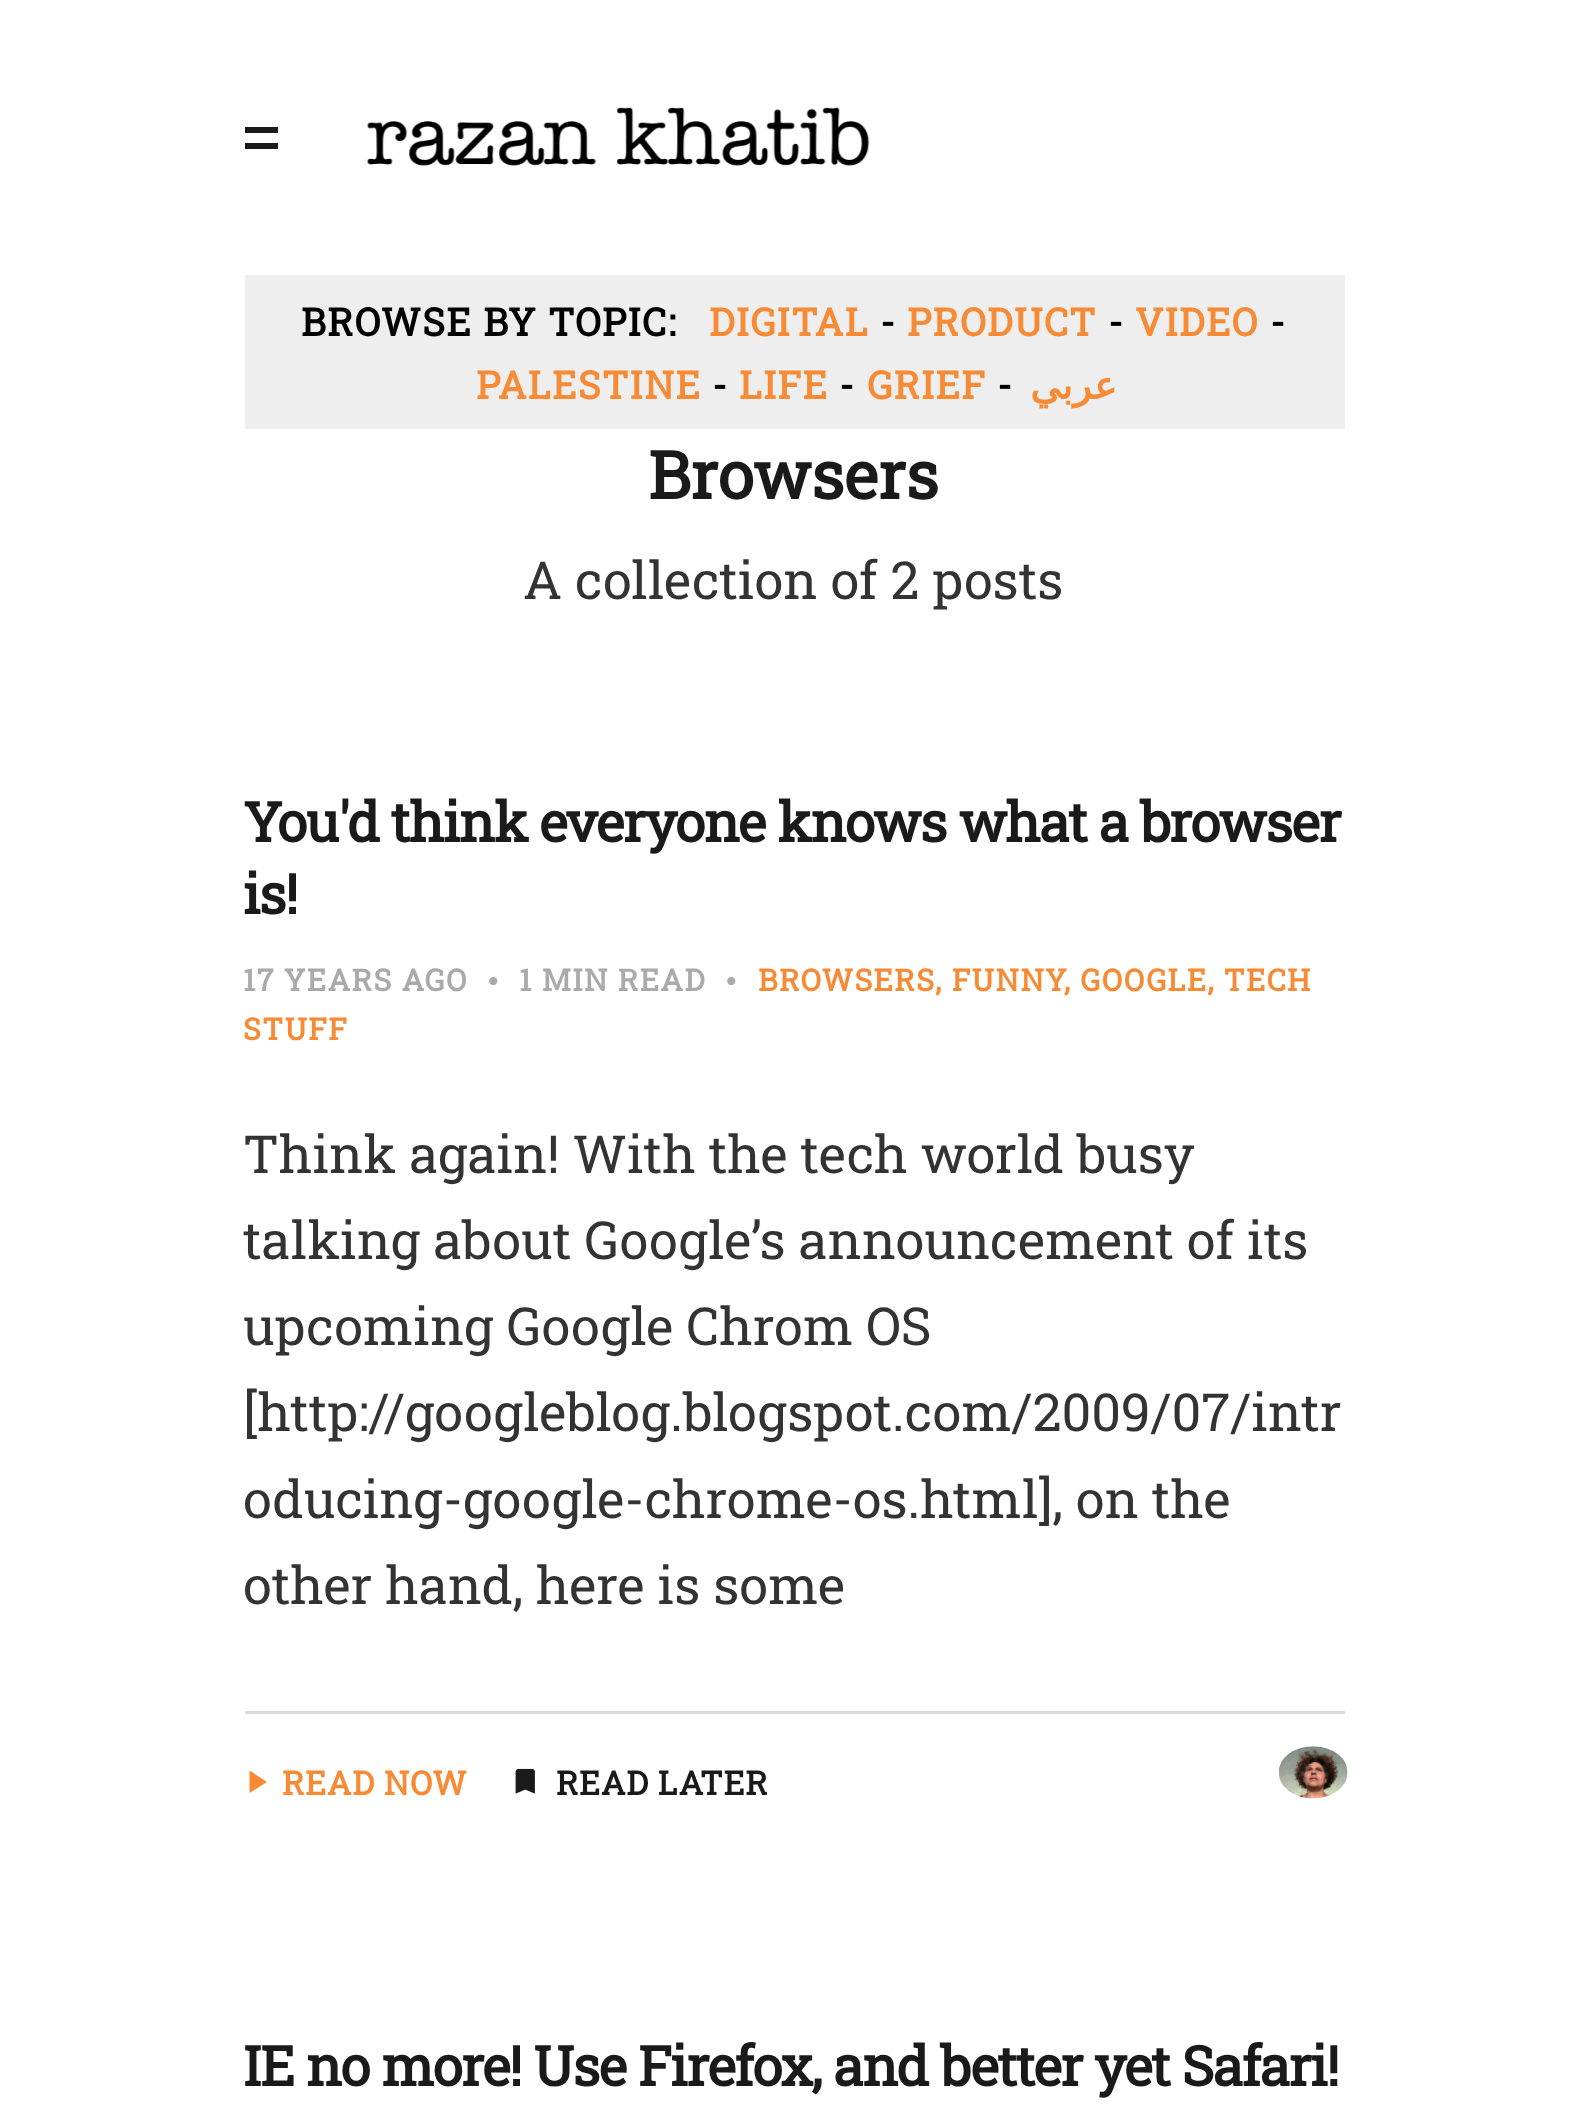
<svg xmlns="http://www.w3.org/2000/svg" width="1585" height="2125">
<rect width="100%" height="100%" fill="#fff"/>
<rect x="245" y="127" width="33" height="6" fill="#1a1a1a"/>
<rect x="245" y="143" width="33" height="6" fill="#1a1a1a"/>
<image x="367" y="107" width="503" height="59" href="media/1.png"/>
<rect x="245" y="275" width="1100" height="154" fill="#eee"/>
<text x="301" y="336" style="font-family:Roboto Slab;font-size:38.5px;font-weight:bold;letter-spacing:1.4px;fill:#000">BROWSE BY TOPIC:</text>
<text x="709" y="336" style="font-family:Roboto Slab;font-size:38.5px;font-weight:bold;letter-spacing:1.4px;fill:#f78b35">DIGITAL</text>
<text x="880" y="336" style="font-family:Roboto Slab;font-size:38.5px;font-weight:bold;letter-spacing:1.4px;fill:#000">-</text>
<text x="907" y="336" style="font-family:Roboto Slab;font-size:38.5px;font-weight:bold;letter-spacing:1.4px;fill:#f78b35">PRODUCT</text>
<text x="1108" y="336" style="font-family:Roboto Slab;font-size:38.5px;font-weight:bold;letter-spacing:1.4px;fill:#000">-</text>
<text x="1135" y="336" style="font-family:Roboto Slab;font-size:38.5px;font-weight:bold;letter-spacing:1.4px;fill:#f78b35">VIDEO</text>
<text x="1270" y="336" style="font-family:Roboto Slab;font-size:38.5px;font-weight:bold;letter-spacing:1.4px;fill:#000">-</text>
<text x="476" y="399" style="font-family:Roboto Slab;font-size:38.5px;font-weight:bold;letter-spacing:1.4px;fill:#f78b35">PALESTINE</text>
<text x="712" y="399" style="font-family:Roboto Slab;font-size:38.5px;font-weight:bold;letter-spacing:1.4px;fill:#000">-</text>
<text x="739" y="399" style="font-family:Roboto Slab;font-size:38.5px;font-weight:bold;letter-spacing:1.4px;fill:#f78b35">LIFE</text>
<text x="839" y="399" style="font-family:Roboto Slab;font-size:38.5px;font-weight:bold;letter-spacing:1.4px;fill:#000">-</text>
<text x="867" y="399" style="font-family:Roboto Slab;font-size:38.5px;font-weight:bold;letter-spacing:1.4px;fill:#f78b35">GRIEF</text>
<text x="997" y="399" style="font-family:Roboto Slab;font-size:38.5px;font-weight:bold;letter-spacing:1.4px;fill:#000">-</text>
<text x="1117" y="399" style="font-family:DejaVu Sans;font-size:38.5px;font-weight:bold;letter-spacing:1.4px;direction:rtl;fill:#f78b35">عربي</text>
<text x="648" y="499" style="font-family:Roboto Slab;font-size:66px;font-weight:bold;fill:#1a1a1a">Browsers</text>
<text x="523" y="599" style="font-family:Roboto Slab;font-size:52.25px;fill:#333">A collection of 2 posts</text>
<text x="243" y="842" style="font-family:Roboto Slab;font-size:55px;font-weight:bold;letter-spacing:-1.4px;fill:#1a1a1a">You'd think everyone knows what a browser</text>
<text x="243" y="914" style="font-family:Roboto Slab;font-size:55px;font-weight:bold;letter-spacing:-1.4px;fill:#1a1a1a">is!</text>
<text x="243" y="991" style="font-family:Roboto Slab;font-size:30.25px;font-weight:bold;letter-spacing:1.4px;fill:#aaa">17 YEARS AGO</text>
<text x="488" y="991" style="font-family:Liberation Serif;font-size:30.25px;font-weight:bold;letter-spacing:1.4px;fill:#aaa">•</text>
<text x="519" y="991" style="font-family:Roboto Slab;font-size:30.25px;font-weight:bold;letter-spacing:1.4px;fill:#aaa">1 MIN READ</text>
<text x="726" y="991" style="font-family:Liberation Serif;font-size:30.25px;font-weight:bold;letter-spacing:1.4px;fill:#aaa">•</text>
<text x="758" y="991" style="font-family:Roboto Slab;font-size:30.25px;font-weight:bold;letter-spacing:1.4px;fill:#f78b35">BROWSERS, FUNNY</text>
<text x="1064" y="991" style="font-family:Roboto Slab;font-size:30.25px;font-weight:bold;letter-spacing:1.4px;fill:#f78b35">, GOOGLE, TECH</text>
<text x="243" y="1040" style="font-family:Roboto Slab;font-size:30.25px;font-weight:bold;letter-spacing:1.4px;fill:#f78b35">STUFF</text>
<text x="243" y="1173" style="font-family:Roboto Slab;font-size:52.25px;fill:#333">Think again! With the tech world busy</text>
<text x="243" y="1259" style="font-family:Roboto Slab;font-size:52.25px;fill:#333">talking about Google’s announcement of its</text>
<text x="243" y="1345" style="font-family:Roboto Slab;font-size:52.25px;fill:#333">upcoming Google Chrom OS</text>
<text x="243" y="1431" style="font-family:Roboto Slab;font-size:52.25px;fill:#333">[http://googleblog.blogspot.com/2009/07/intr</text>
<text x="243" y="1518" style="font-family:Roboto Slab;font-size:52.25px;fill:#333">oducing-google-chrome-os.html], on the</text>
<text x="243" y="1604" style="font-family:Roboto Slab;font-size:52.25px;fill:#333">other hand, here is some</text>
<rect x="245" y="1711" width="1100" height="3" fill="#d9d9d9"/>
<path d="M249.5 1770.5v22.5l17.5-11z" fill="#f78b35"/>
<text x="282" y="1795" style="font-family:Roboto Slab;font-size:33px;font-weight:bold;letter-spacing:0.75px;fill:#f78b35">READ NOW</text>
<image x="515" y="1768" width="20" height="26" href="media/2.png"/>
<text x="556" y="1795" style="font-family:Roboto Slab;font-size:33px;font-weight:bold;letter-spacing:0.75px;fill:#1a1a1a">READ LATER</text>
<image x="1278" y="1746" width="70" height="53" href="media/3.png"/>
<text x="243" y="2086" style="font-family:Roboto Slab;font-size:55px;font-weight:bold;letter-spacing:-1.4px;fill:#1a1a1a">IE no more! Use Firefox, and better yet Safari!</text>
</svg>
